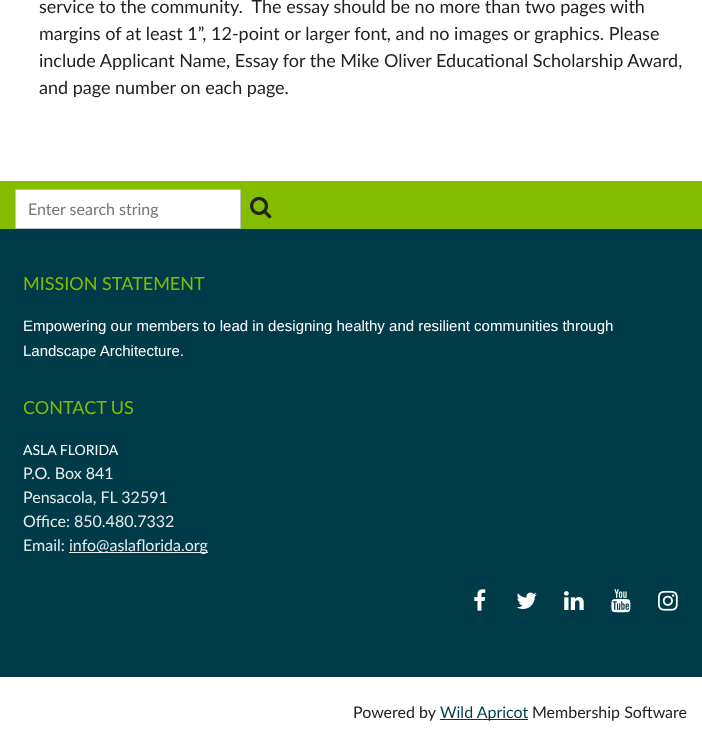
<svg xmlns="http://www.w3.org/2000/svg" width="702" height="737">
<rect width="100%" height="100%" fill="#fff"/>
<text x="39" y="13" style="font-family:Lato;font-size:18px;fill:#222" xml:space="preserve">service to the community.  The essay should be no more than two pages with</text>
<text x="39" y="40" style="font-family:Lato;font-size:18px;fill:#222">margins of at least 1”, 12-point or larger font, and no images or graphics. Please</text>
<text x="39" y="67" style="font-family:Lato;font-size:18px;fill:#222">include Applicant Name, Essay for the Mike Oliver Educational Scholarship Award,</text>
<text x="39" y="94" style="font-family:Lato;font-size:18px;fill:#222">and page number on each page.</text>
<rect y="181" width="702" height="48" fill="#84bd00"/>
<rect x="15.5" y="189.5" width="225" height="39" fill="#fff" stroke="#c1c1c1"/>
<text x="28" y="215" style="font-family:Lato;font-size:16px;fill:#757575">Enter search string</text>
<image x="250" y="196" width="22" height="23" href="media/1.png"/>
<rect y="229" width="702" height="1" fill="#2b2b2b"/>
<rect y="230" width="702" height="447" fill="#003b49"/>
<text x="23" y="290" style="font-family:Lato;font-size:18px;fill:#81bc00">MISSION STATEMENT</text>
<text x="23" y="331" style="font-family:Liberation Sans;font-size:15px;fill:#fff">Empowering our members to lead in designing healthy and resilient communities through</text>
<text x="23" y="356" style="font-family:Liberation Sans;font-size:15px;fill:#fff">Landscape Architecture.</text>
<text x="23" y="414" style="font-family:Lato;font-size:18px;fill:#81bc00">CONTACT US</text>
<text x="23" y="455" style="font-family:Lato;font-size:14px;fill:#fff">ASLA FLORIDA</text>
<text x="23" y="479" style="font-family:Lato;font-size:16px;fill:#e6ebed">P.O. Box 841</text>
<text x="23" y="503" style="font-family:Lato;font-size:16px;fill:#e6ebed">Pensacola, FL 32591</text>
<text x="23" y="527" style="font-family:Lato;font-size:16px;fill:#e6ebed">Office: 850.480.7332</text>
<text x="23" y="551" style="font-family:Lato;font-size:16px;fill:#e6ebed">Email:</text>
<rect x="69" y="552" width="139" height="1" fill="#e6ebed"/>
<text x="69" y="551" style="font-family:Lato;font-size:16px;fill:#e6ebed">info@aslaflorida.org</text>
<image x="474" y="589" width="12" height="22" href="media/2.png"/>
<image x="516" y="592" width="21" height="17" href="media/3.png"/>
<image x="564" y="591" width="20" height="19" href="media/4.png"/>
<image x="611" y="589" width="20" height="24" href="media/5.png"/>
<image x="658" y="590" width="20" height="21" href="media/6.png"/>
<text x="353" y="718" style="font-family:Lato;font-size:16px;fill:#222">Powered by</text>
<rect x="440" y="719" width="88" height="1" fill="#003b49"/>
<text x="440" y="718" style="font-family:Lato;font-size:16px;fill:#003b49">Wild Apricot</text>
<text x="532" y="718" style="font-family:Lato;font-size:16px;fill:#222">Membership Software</text>
</svg>
